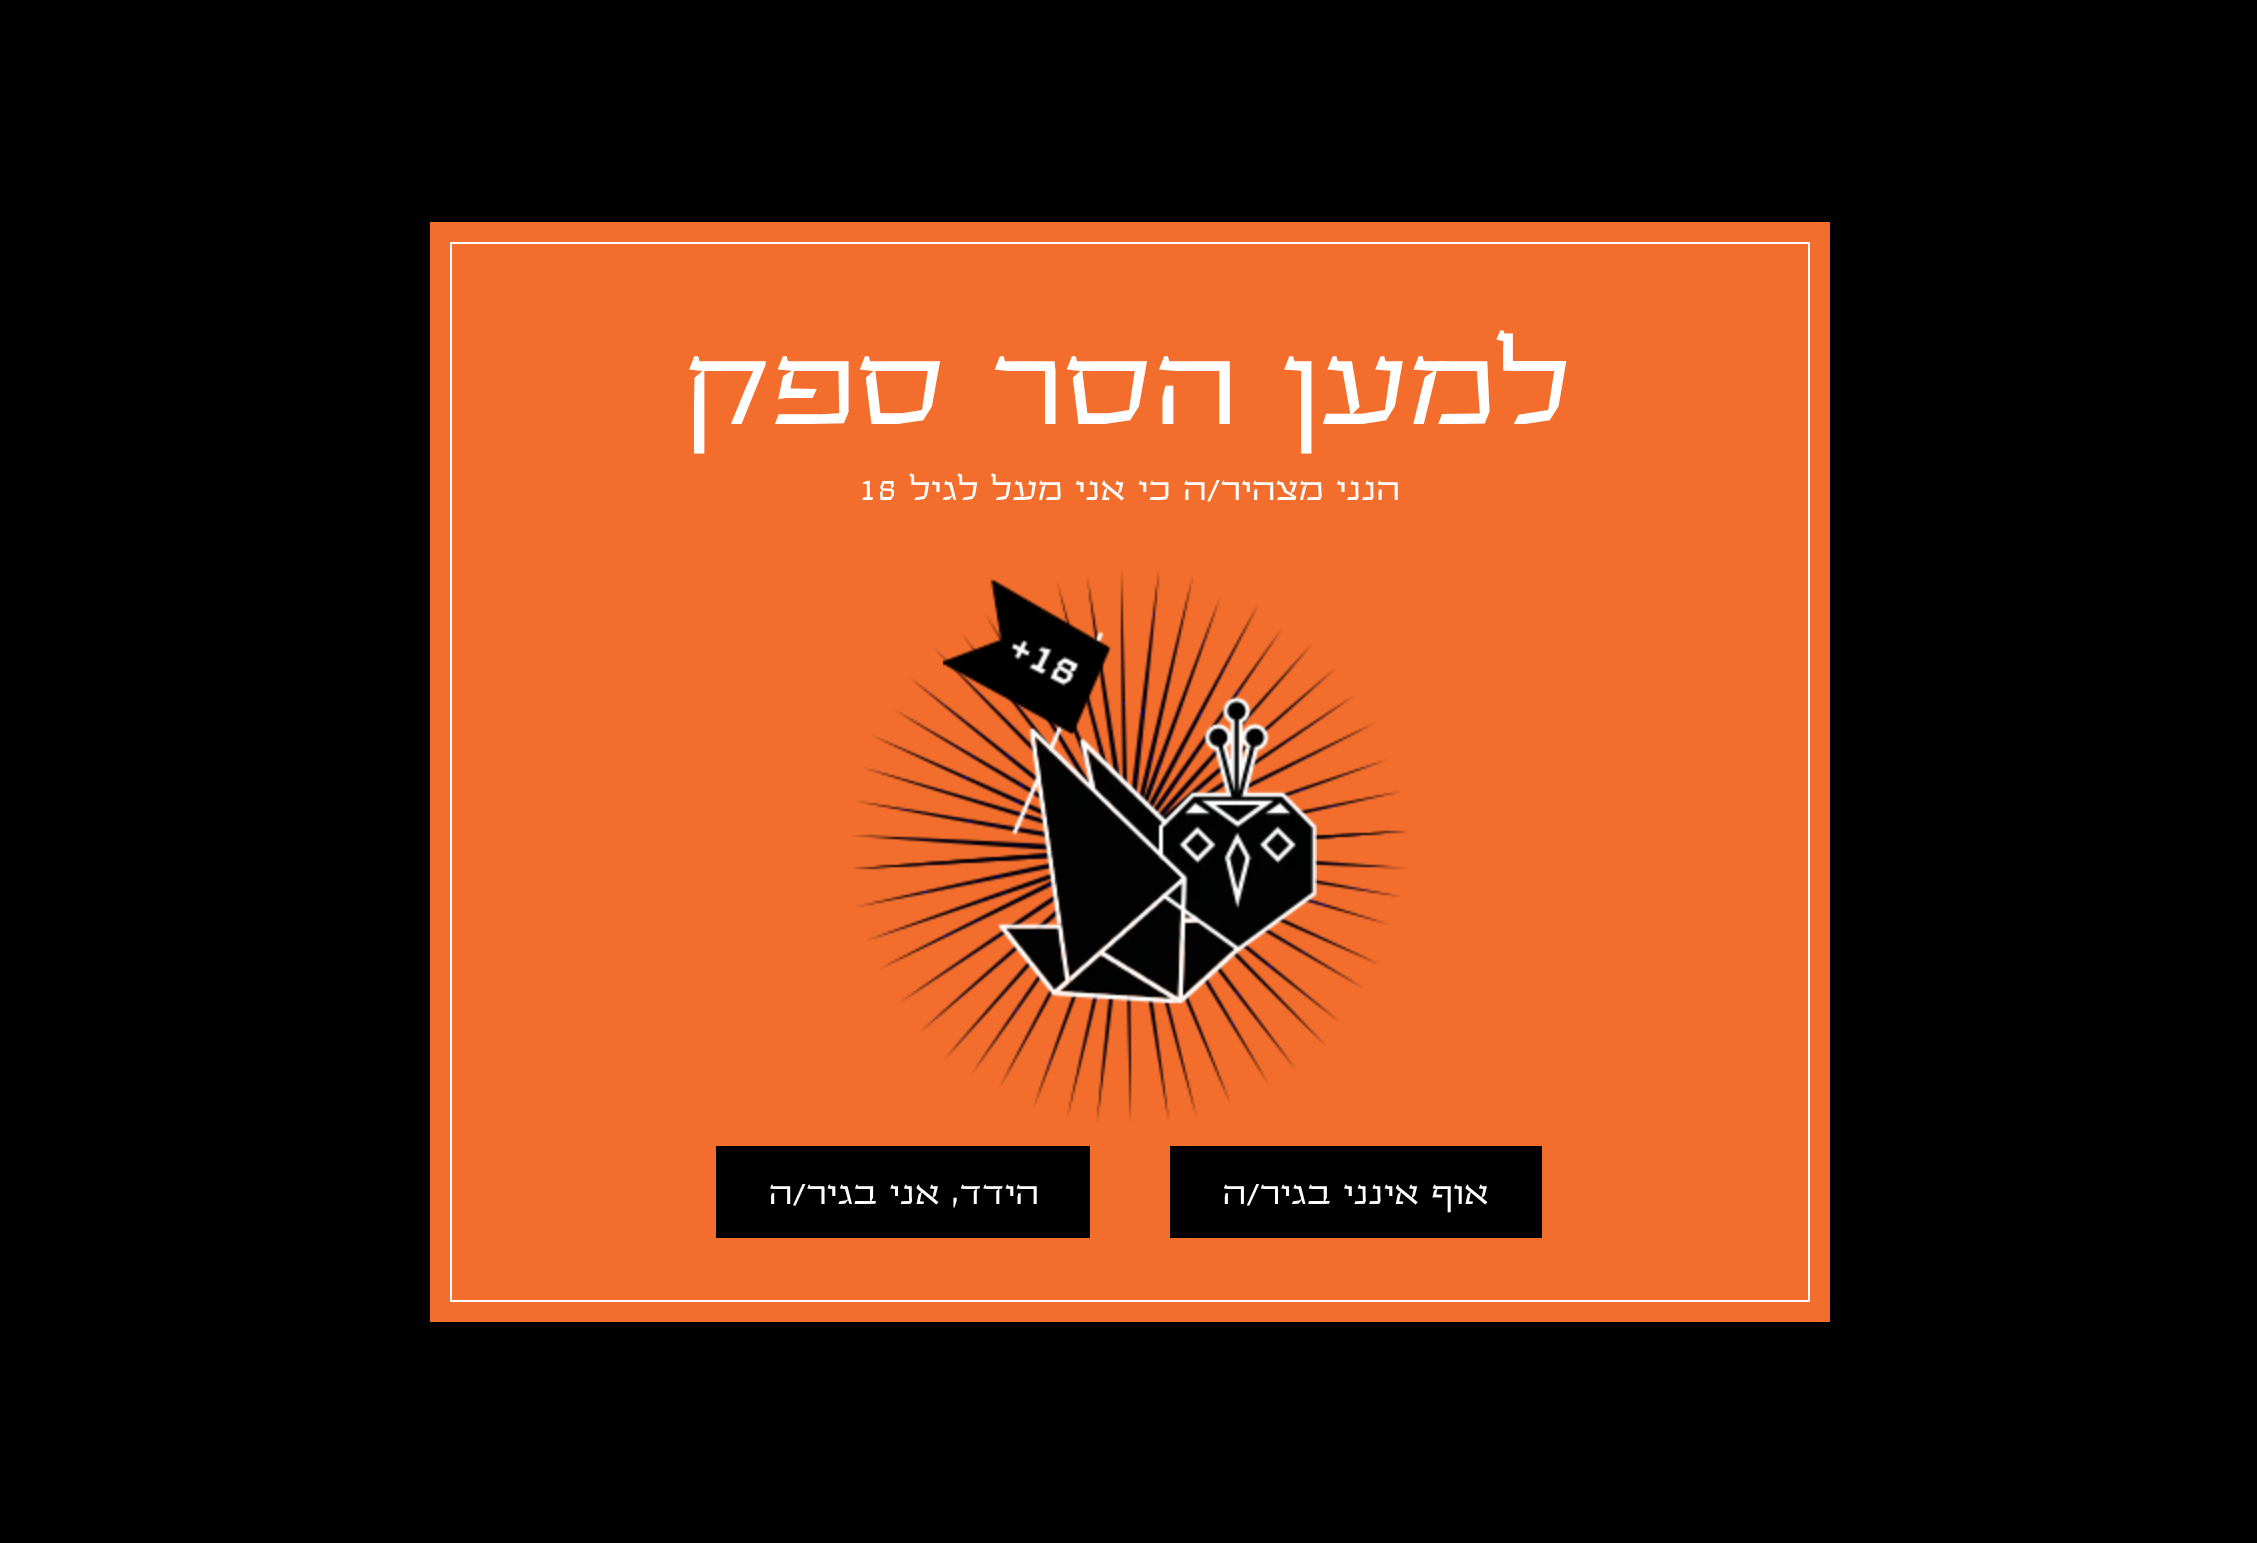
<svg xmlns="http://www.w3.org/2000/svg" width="2257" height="1543">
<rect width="100%" height="100%" fill="#000"/>
<rect x="430" y="222" width="1400" height="1100" fill="#f36e2c"/>
<rect x="451" y="243" width="1358" height="1058" fill="none" stroke="#fff" stroke-width="2"/>
<text x="1572" y="424" style="font-family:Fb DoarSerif;font-size:120px;font-weight:300;direction:rtl;fill:#fff">למען הסר ספק</text>
<text x="1400" y="500" style="font-family:Fb DoarSerif;font-size:34px;font-weight:300;direction:rtl;fill:#fff">הנני מצהיר/ה כי אני מעל לגיל</text>
<text x="858" y="500" style="font-family:Fb DoarSerif;font-size:34px;font-weight:300;fill:#fff">18</text>
<image x="851" y="570" width="557" height="552" href="media/1.png"/>
<image x="943" y="579" width="374" height="426" href="media/2.png"/>
<rect x="1170" y="1146" width="372" height="92" fill="#000"/>
<text x="1489" y="1204" style="font-family:Fb DoarSerif;font-size:34px;font-weight:300;direction:rtl;fill:#fff">אוף אינני בגיר/ה</text>
<rect x="716" y="1146" width="374" height="92" fill="#000"/>
<text x="1039" y="1204" style="font-family:Fb DoarSerif;font-size:34px;font-weight:300;direction:rtl;fill:#fff">הידד, אני בגיר/ה</text>
</svg>
